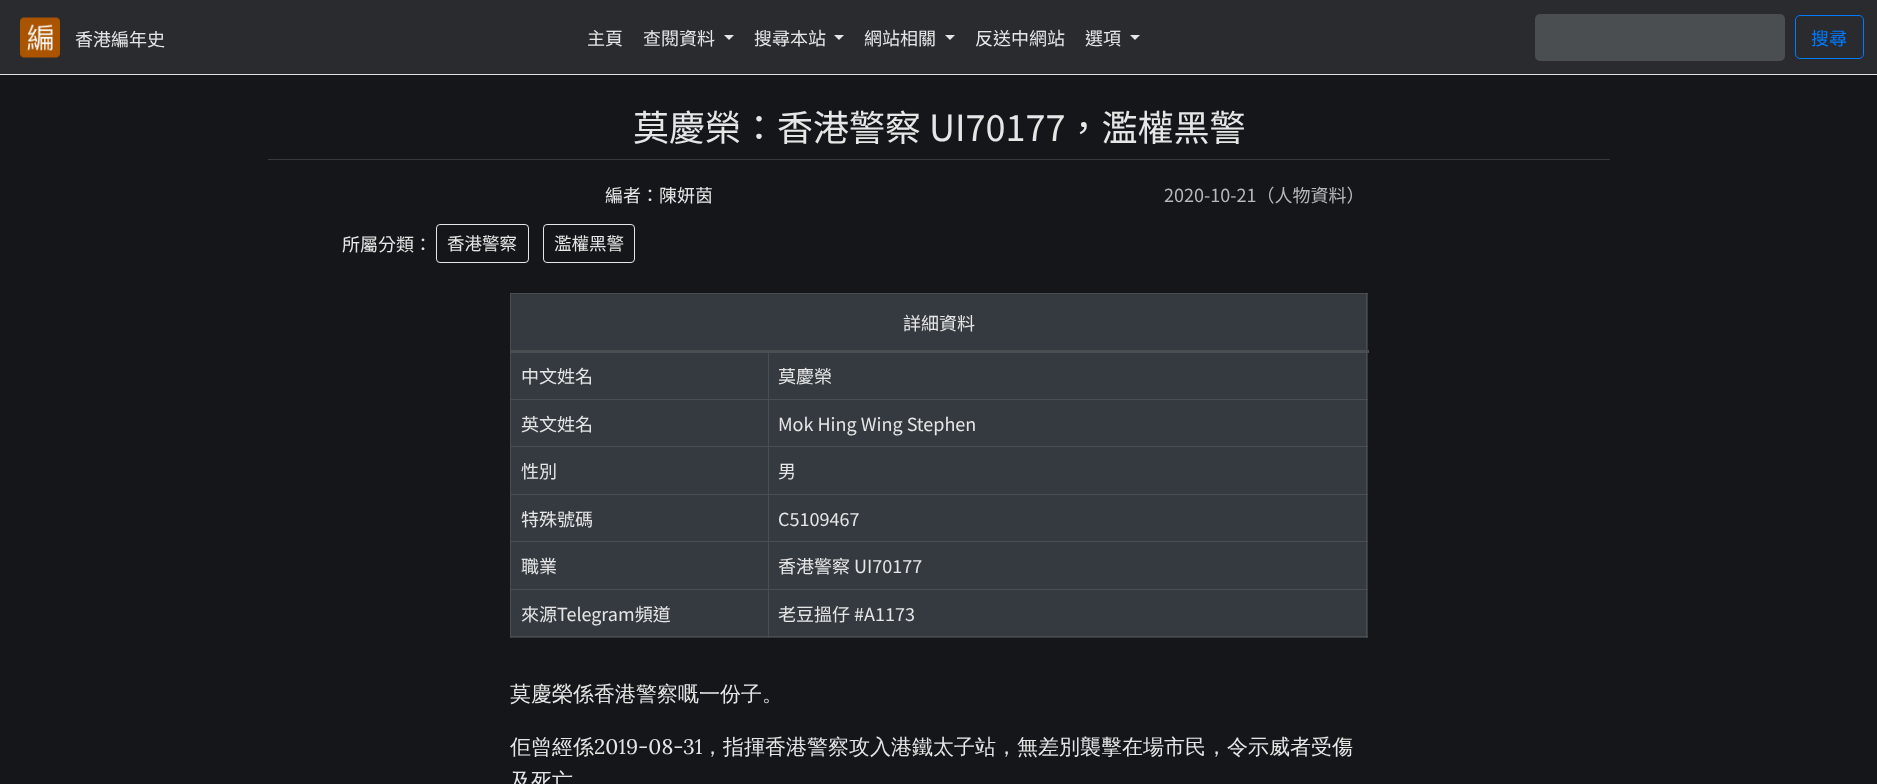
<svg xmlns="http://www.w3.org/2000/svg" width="1877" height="784">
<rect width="100%" height="100%" fill="#141619"/>
<rect width="1877" height="74" fill="#292b2f"/>
<rect y="74" width="1877" height="1" fill="#dee2e6"/>
<image x="20" y="17" width="40" height="41" href="media/1.png"/>
<text x="75" y="46" style="font-family:Noto Sans TC;font-size:18px;fill:#e6e6e6">香港編年史</text>
<text x="587" y="45" style="font-family:Noto Sans TC;font-size:18px;fill:#e6e6e6">主頁</text>
<text x="643" y="45" style="font-family:Noto Sans TC;font-size:18px;fill:#e6e6e6">查閱資料</text>
<path d="M724 35h10l-5 5z" fill="#e6e6e6"/>
<text x="754" y="45" style="font-family:Noto Sans TC;font-size:18px;fill:#e6e6e6">搜尋本站</text>
<path d="M834 35h10l-5 5z" fill="#e6e6e6"/>
<text x="864" y="45" style="font-family:Noto Sans TC;font-size:18px;fill:#e6e6e6">網站相關</text>
<path d="M945 35h10l-5 5z" fill="#e6e6e6"/>
<text x="975" y="45" style="font-family:Noto Sans TC;font-size:18px;fill:#e6e6e6">反送中網站</text>
<text x="1085" y="45" style="font-family:Noto Sans TC;font-size:18px;fill:#e6e6e6">選項</text>
<path d="M1130 35h10l-5 5z" fill="#e6e6e6"/>
<rect x="1535" y="14" width="250" height="47" rx="5" fill="#4b4e50"/>
<rect x="1795.5" y="15.5" width="68" height="43" rx="4.5" fill="none" stroke="#007bff"/>
<text x="1811" y="45" style="font-family:Noto Sans TC;font-size:18px;fill:#007bff">搜尋</text>
<rect x="268" y="159" width="1342" height="1" fill="#343a40"/>
<text x="633" y="141" style="font-family:Noto Sans TC;font-size:36px;fill:#e6e6e6">莫慶榮：香港警察 UI70177，濫權黑警</text>
<text x="605" y="202" style="font-family:Noto Sans TC;font-size:18px;fill:#e6e6e6">編者：陳妍茵</text>
<text x="1164" y="202" style="font-family:Noto Sans TC;font-size:18px;fill:#b6b9bc">2020-10-21（人物資料）</text>
<text x="342" y="251" style="font-family:Noto Sans TC;font-size:18px;fill:#e6e6e6">所屬分類：</text>
<rect x="436.5" y="224.5" width="92" height="38" rx="3.5" fill="none" stroke="#e6e6e6"/>
<text x="447" y="250" style="font-family:Noto Sans TC;font-size:17.5px;fill:#e6e6e6">香港警察</text>
<rect x="543.5" y="224.5" width="91" height="38" rx="3.5" fill="none" stroke="#e6e6e6"/>
<text x="554" y="250" style="font-family:Noto Sans TC;font-size:17.5px;fill:#e6e6e6">濫權黑警</text>
<rect x="511" y="294" width="857" height="344" fill="#343a40"/>
<rect x="510" y="293" width="858" height="1" fill="#4b4e50"/>
<rect x="768" y="399" width="600" height="1" fill="#4b4e50"/>
<rect x="768" y="446" width="600" height="1" fill="#4b4e50"/>
<rect x="768" y="494" width="600" height="1" fill="#4b4e50"/>
<rect x="768" y="541" width="600" height="1" fill="#4b4e50"/>
<rect x="768" y="589" width="600" height="1" fill="#4b4e50"/>
<rect x="1366" y="589" width="1" height="49" fill="#4b4e50"/>
<rect x="1366" y="541" width="1" height="49" fill="#4b4e50"/>
<rect x="1366" y="494" width="1" height="49" fill="#4b4e50"/>
<rect x="1366" y="446" width="1" height="49" fill="#4b4e50"/>
<rect x="1366" y="350" width="1" height="98" fill="#4b4e50"/>
<rect x="1366" y="293" width="1" height="58" fill="#4b4e50"/>
<rect x="768" y="636" width="600" height="1" fill="#4b4e50"/>
<rect x="768" y="589" width="1" height="49" fill="#4b4e50"/>
<rect x="510" y="589" width="259" height="1" fill="#4b4e50"/>
<rect x="768" y="541" width="1" height="49" fill="#4b4e50"/>
<rect x="510" y="541" width="259" height="1" fill="#4b4e50"/>
<rect x="768" y="494" width="1" height="49" fill="#4b4e50"/>
<rect x="510" y="494" width="259" height="1" fill="#4b4e50"/>
<rect x="768" y="446" width="1" height="49" fill="#4b4e50"/>
<rect x="510" y="446" width="259" height="1" fill="#4b4e50"/>
<rect x="768" y="399" width="1" height="49" fill="#4b4e50"/>
<rect x="510" y="399" width="259" height="1" fill="#4b4e50"/>
<rect x="510" y="636" width="259" height="1" fill="#4b4e50"/>
<rect x="510" y="589" width="1" height="49" fill="#4b4e50"/>
<rect x="510" y="541" width="1" height="49" fill="#4b4e50"/>
<rect x="510" y="494" width="1" height="49" fill="#4b4e50"/>
<rect x="510" y="446" width="1" height="49" fill="#4b4e50"/>
<rect x="510" y="350" width="1" height="98" fill="#4b4e50"/>
<rect x="510" y="293" width="1" height="58" fill="#4b4e50"/>
<rect x="768" y="350" width="1" height="50" fill="#4b4e50"/>
<rect x="510" y="350" width="859" height="3" fill="#4b4e50"/>
<text x="903" y="330" style="font-family:Noto Sans TC;font-size:18px;fill:#e6e6e6">詳細資料</text>
<text x="521" y="383" style="font-family:Noto Sans TC;font-size:18px;fill:#e6e6e6">中文姓名</text>
<text x="778" y="383" style="font-family:Noto Sans TC;font-size:18px;fill:#e6e6e6">莫慶榮</text>
<text x="521" y="431" style="font-family:Noto Sans TC;font-size:18px;fill:#e6e6e6">英文姓名</text>
<text x="778" y="431" style="font-family:Noto Sans TC;font-size:18px;fill:#e6e6e6">Mok Hing Wing Stephen</text>
<text x="521" y="478" style="font-family:Noto Sans TC;font-size:18px;fill:#e6e6e6">性別</text>
<text x="778" y="478" style="font-family:Noto Sans TC;font-size:18px;fill:#e6e6e6">男</text>
<text x="521" y="526" style="font-family:Noto Sans TC;font-size:18px;fill:#e6e6e6">特殊號碼</text>
<text x="778" y="526" style="font-family:Noto Sans TC;font-size:18px;fill:#e6e6e6">C5109467</text>
<text x="521" y="573" style="font-family:Noto Sans TC;font-size:18px;fill:#e6e6e6">職業</text>
<text x="778" y="573" style="font-family:Noto Sans TC;font-size:18px;fill:#e6e6e6">香港警察 UI70177</text>
<text x="521" y="621" style="font-family:Noto Sans TC;font-size:18px;fill:#e6e6e6">來源Telegram頻道</text>
<text x="778" y="621" style="font-family:Noto Sans TC;font-size:18px;fill:#e6e6e6">老豆搵仔 #A1173</text>
<text x="510" y="701" style="font-family:WenQuanYi Zen Hei;font-size:21px;font-weight:500;fill:#e6e6e6">莫慶榮係香港警察嘅一份子。</text>
<text x="510" y="754" style="font-family:WenQuanYi Zen Hei;font-size:21px;font-weight:500;fill:#e6e6e6">佢曾經係</text>
<text x="594" y="754" style="font-family:Lora;font-size:21px;fill:#e6e6e6">2019-08-31</text>
<text x="702" y="754" style="font-family:WenQuanYi Zen Hei;font-size:21px;font-weight:500;fill:#e6e6e6">，指揮香港警察攻入港鐵太子站，無差別襲擊在場市民，令示威者受傷</text>
<text x="510" y="788" style="font-family:WenQuanYi Zen Hei;font-size:21px;font-weight:500;fill:#e6e6e6">及死亡</text>
</svg>
